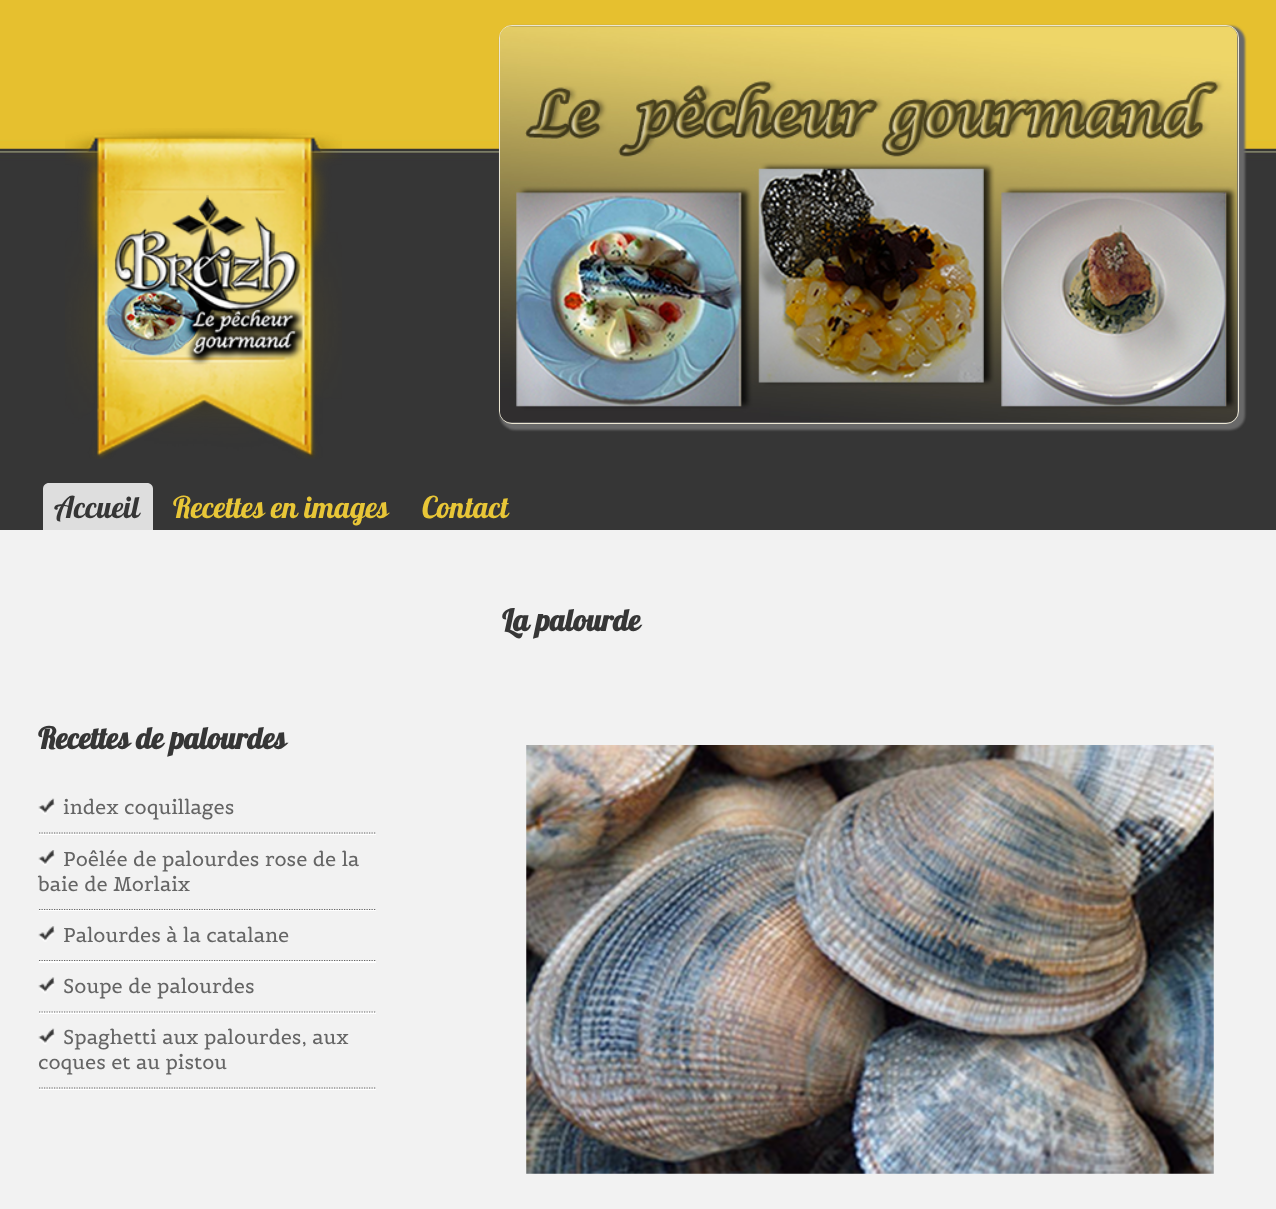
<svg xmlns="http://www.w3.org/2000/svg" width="1276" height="1209">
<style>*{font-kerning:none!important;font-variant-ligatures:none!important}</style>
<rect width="100%" height="100%" fill="#f2f2f2"/>
<image x="0" y="0" width="1276" height="530" href="media/1.png"/>
<image x="65" y="128" width="277" height="331" href="media/2.png"/>
<rect x="500" y="26" width="745" height="404" rx="15" fill="#696969" filter="blur(1px)"/>
<rect x="499.5" y="25.5" width="739" height="398" rx="12.5" fill="none" stroke="#ece7d3"/>
<image x="500" y="26" width="738" height="397" href="media/3.png"/>
<path d="M49 483h98c3.5 0 6 2.5 6 6v41h-110v-41c0-3.5 2.5-6 6-6z" fill="#dedede"/>
<text x="54" y="518" style="font-family:Lobster;font-size:30px;fill:#363636">Accueil</text>
<text x="173" y="518" style="font-family:Lobster;font-size:30px;fill:#e8c637">Recettes en images</text>
<text x="422" y="518" style="font-family:Lobster;font-size:30px;fill:#e8c637">Contact</text>
<text x="502" y="631" style="font-family:Lobster;font-size:30px;font-weight:bold;fill:#363636">La palourde</text>
<image x="526" y="745" width="688" height="429" href="media/4.png"/>
<text x="38" y="749" style="font-family:Lobster;font-size:30px;font-weight:bold;fill:#363636">Recettes de palourdes</text>
<rect x="39" y="834" width="337" height="1" fill="#fff"/>
<image x="38" y="798" width="17" height="17" href="media/5.png"/>
<path d="M39 833h337" fill="none" stroke="#656565" stroke-width="1.2" stroke-dasharray="1.25 1.25"/>
<text x="63" y="814" style="font-family:Belgrano;font-size:20px;fill:#656565">index coquillages</text>
<rect x="39" y="910" width="337" height="1" fill="#fff"/>
<image x="38" y="850" width="17" height="16" href="media/6.png"/>
<path d="M39 909.5h337" fill="none" stroke="#656565" stroke-width="1.2" stroke-dasharray="1.25 1.25"/>
<text x="63" y="866" style="font-family:Belgrano;font-size:20px;fill:#656565">Poêlée de palourdes rose de la</text>
<text x="38" y="891" style="font-family:Belgrano;font-size:20px;fill:#656565">baie de Morlaix</text>
<rect x="39" y="961" width="337" height="2" fill="#fff"/>
<image x="38" y="926" width="17" height="16" href="media/7.png"/>
<path d="M39 960.5h337" fill="none" stroke="#656565" stroke-width="1.2" stroke-dasharray="1.25 1.25"/>
<text x="63" y="942" style="font-family:Belgrano;font-size:20px;fill:#656565">Palourdes à la catalane</text>
<rect x="39" y="1012" width="337" height="2" fill="#fff"/>
<image x="38" y="977" width="17" height="17" href="media/8.png"/>
<path d="M39 1012h337" fill="none" stroke="#656565" stroke-width="1.2" stroke-dasharray="1.25 1.25"/>
<text x="63" y="993" style="font-family:Belgrano;font-size:20px;fill:#656565">Soupe de palourdes</text>
<rect x="39" y="1089" width="337" height="1" fill="#fff"/>
<image x="38" y="1028" width="17" height="17" href="media/5.png"/>
<path d="M39 1088h337" fill="none" stroke="#656565" stroke-width="1.2" stroke-dasharray="1.25 1.25"/>
<text x="63" y="1044" style="font-family:Belgrano;font-size:20px;fill:#656565">Spaghetti aux palourdes, aux</text>
<text x="38" y="1069" style="font-family:Belgrano;font-size:20px;fill:#656565">coques et au pistou</text>
</svg>
